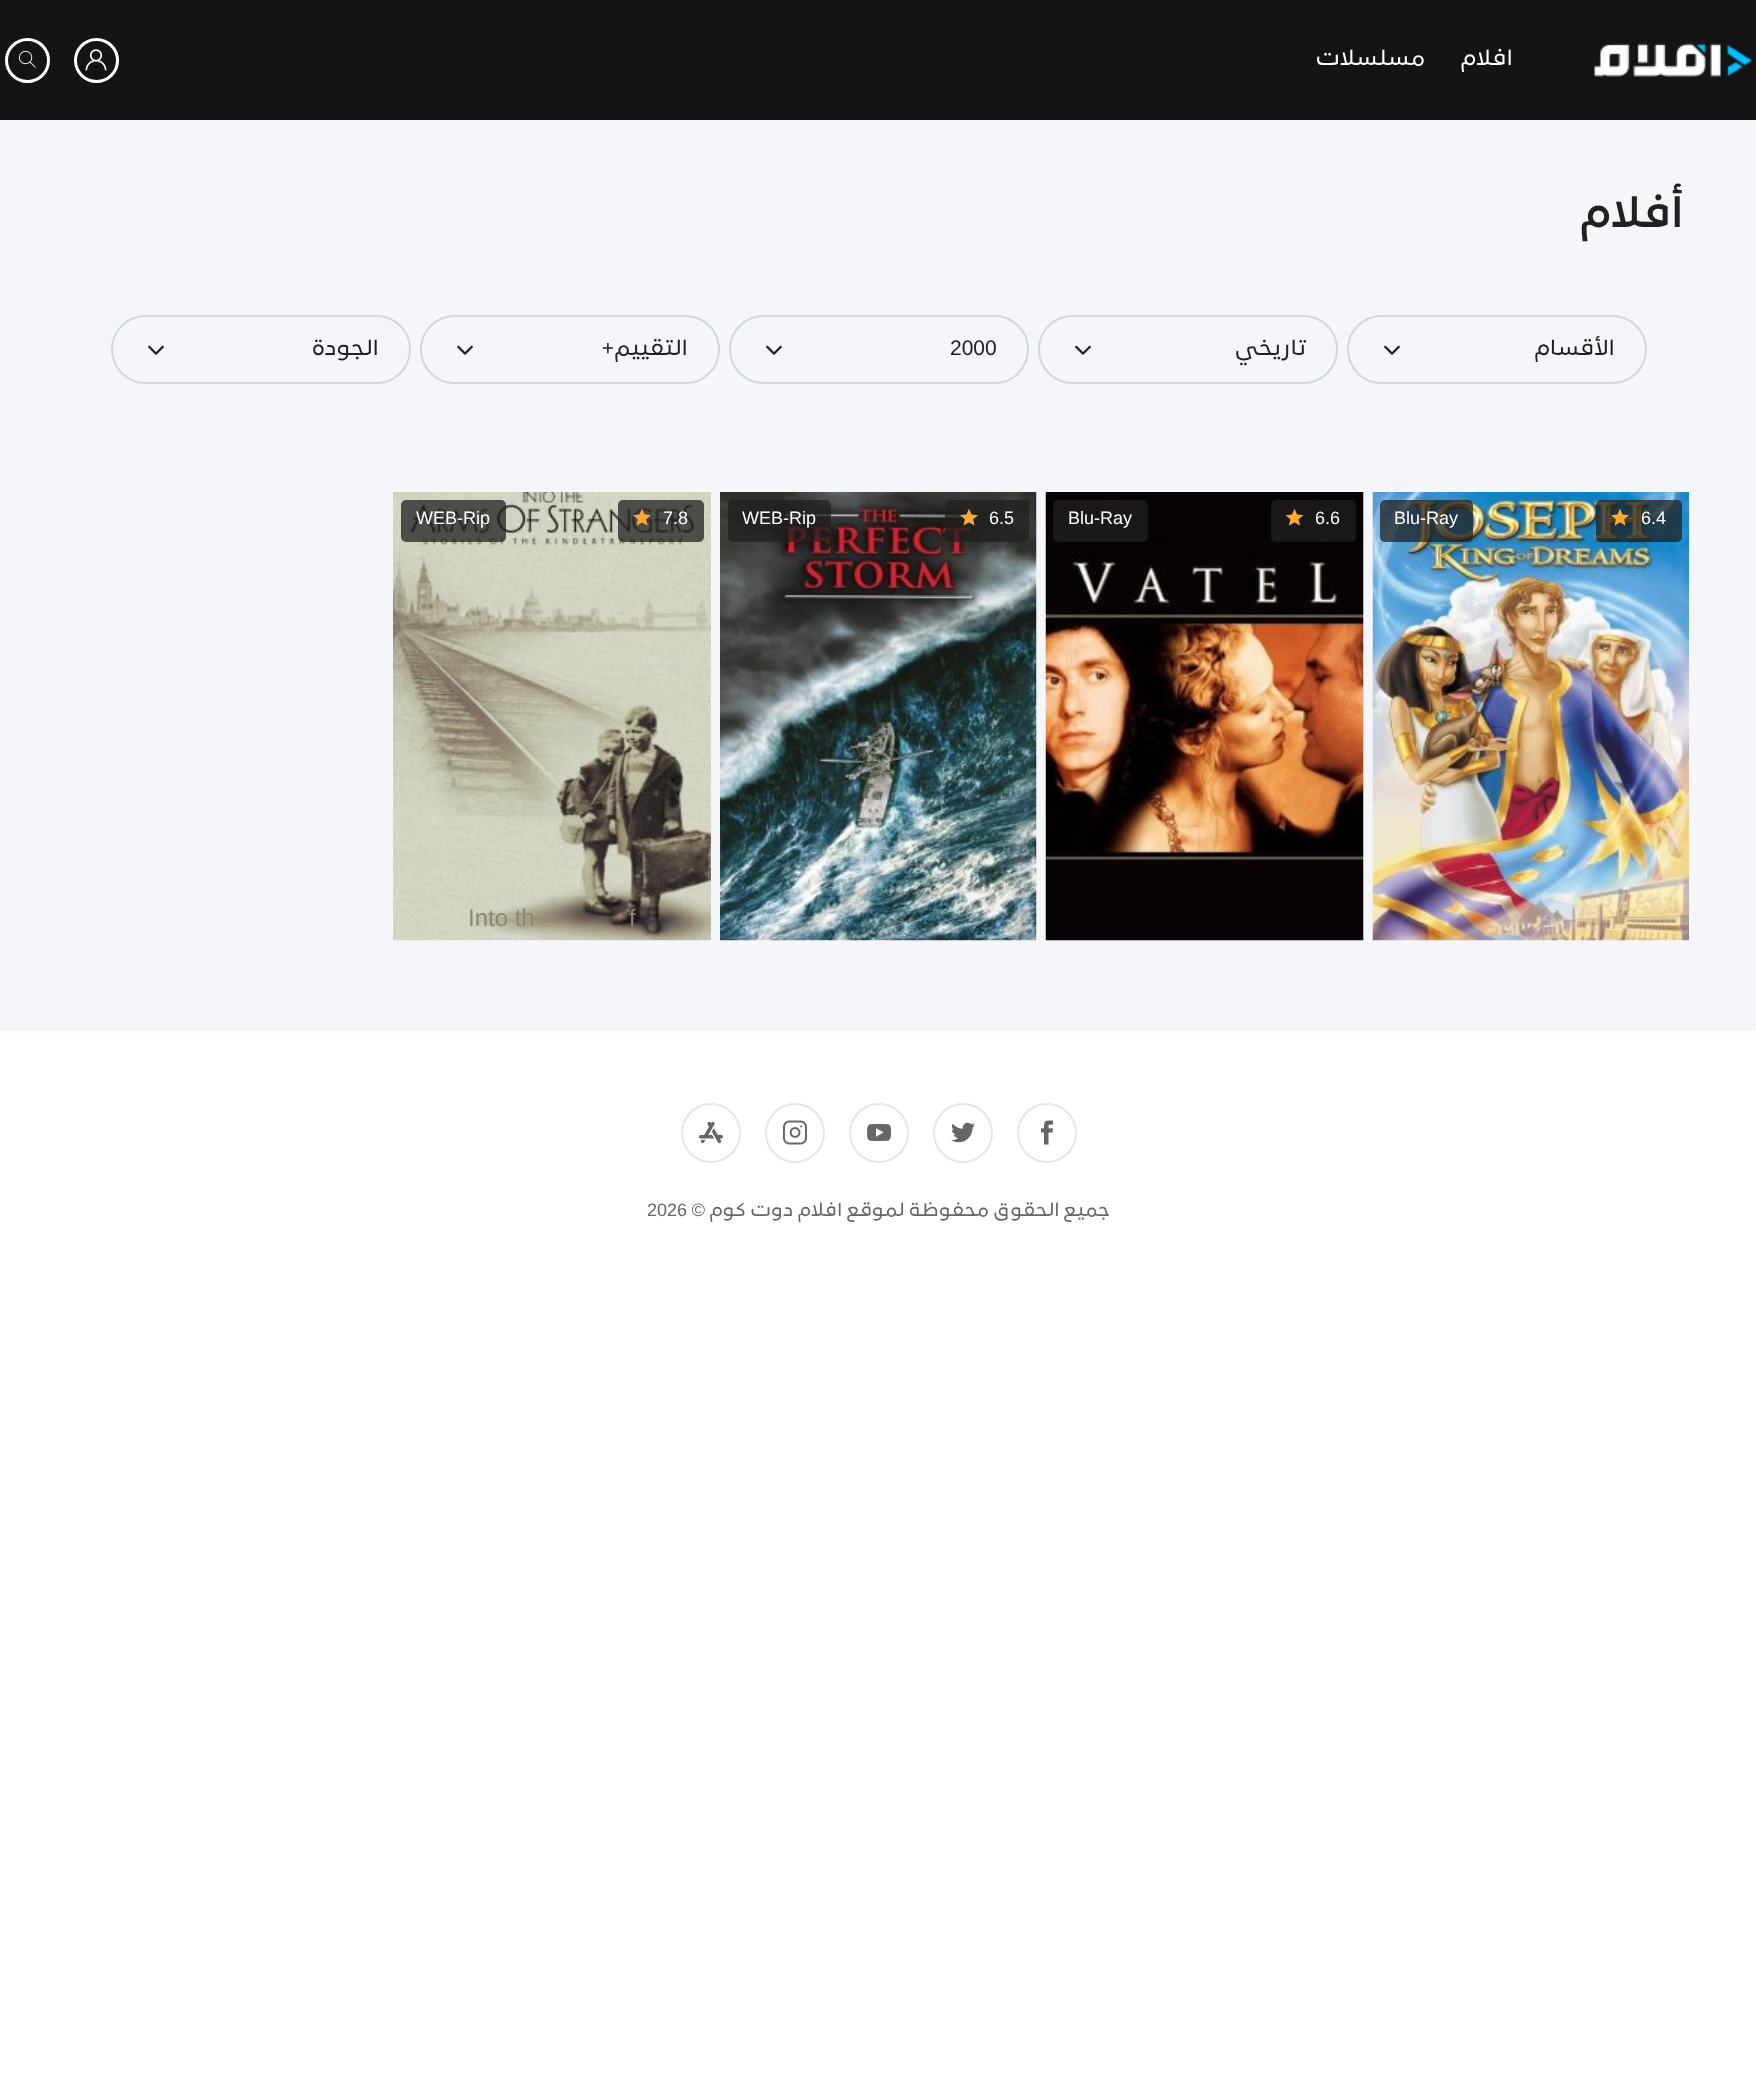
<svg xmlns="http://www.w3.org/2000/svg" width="1756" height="2079">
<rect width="100%" height="100%" fill="#fff"/>
<rect width="1756" height="120" fill="#141414"/>
<image x="1594" y="43" width="158" height="34" href="media/1.png"/>
<text x="1513" y="65" style="font-family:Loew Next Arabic;font-size:21px;font-weight:500;direction:rtl;fill:#fff">افلام</text>
<text x="1425" y="65" style="font-family:Loew Next Arabic;font-size:21px;font-weight:500;direction:rtl;fill:#fff">مسلسلات</text>
<circle cx="96.5" cy="60.5" r="21" fill="none" stroke="#fff" stroke-width="3"/>
<image x="85" y="49" width="22" height="22" href="media/2.png"/>
<circle cx="27.5" cy="60.5" r="21" fill="none" stroke="#fff" stroke-width="3"/>
<image x="18" y="50" width="18" height="18" href="media/3.png"/>
<rect y="120" width="1756" height="911" fill="#f4f6fa"/>
<text x="1684" y="227" style="font-family:Loew Next Arabic;font-size:42px;font-weight:bold;direction:rtl;fill:#202020">أفلام</text>
<rect x="1348" y="316" width="298" height="67" rx="33.5" fill="none" stroke="#d0d8dd" stroke-width="2"/>
<text x="1615" y="355" style="font-family:Loew Next Arabic;font-size:21px;font-weight:500;direction:rtl;fill:#202020">الأقسام</text>
<image x="1384" y="345" width="16" height="10" href="media/4.png"/>
<rect x="1039" y="316" width="298" height="67" rx="33.5" fill="none" stroke="#d0d8dd" stroke-width="2"/>
<text x="1306" y="355" style="font-family:Loew Next Arabic;font-size:21px;font-weight:500;direction:rtl;fill:#202020">تاريخي</text>
<image x="1075" y="345" width="16" height="10" href="media/4.png"/>
<rect x="730" y="316" width="298" height="67" rx="33.5" fill="none" stroke="#d0d8dd" stroke-width="2"/>
<text x="950" y="355" style="font-family:Liberation Sans;font-size:21px;fill:#202020">2000</text>
<image x="766" y="345" width="16" height="10" href="media/4.png"/>
<rect x="421" y="316" width="298" height="67" rx="33.5" fill="none" stroke="#d0d8dd" stroke-width="2"/>
<text x="688" y="355" style="font-family:Loew Next Arabic;font-size:21px;font-weight:500;direction:rtl;fill:#202020">التقييم</text>
<text x="614" y="355" style="font-family:Liberation Sans;font-size:21px;direction:rtl;fill:#202020">+</text>
<image x="457" y="345" width="16" height="10" href="media/4.png"/>
<rect x="112" y="316" width="298" height="67" rx="33.5" fill="none" stroke="#d0d8dd" stroke-width="2"/>
<text x="379" y="355" style="font-family:Loew Next Arabic;font-size:21px;font-weight:500;direction:rtl;fill:#202020">الجودة</text>
<image x="148" y="345" width="16" height="10" href="media/4.png"/>
<image x="1372" y="492" width="317" height="449" href="media/5.png"/>
<rect x="1596" y="500" width="86" height="42" rx="5" fill="#202020bf"/>
<text x="1641" y="524" style="font-family:Liberation Sans;font-size:18px;fill:#fff">6.4</text>
<image x="1611" y="508" width="18" height="18" href="media/6.png"/>
<rect x="1380" y="500" width="93" height="42" rx="5" fill="#202020bf"/>
<text x="1394" y="524" style="font-family:Liberation Sans;font-size:18px;fill:#fff">Blu-Ray</text>
<image x="1045" y="492" width="319" height="449" href="media/7.png"/>
<rect x="1271" y="500" width="85" height="42" rx="5" fill="#202020bf"/>
<text x="1315" y="524" style="font-family:Liberation Sans;font-size:18px;fill:#fff">6.6</text>
<image x="1285" y="508" width="19" height="18" href="media/8.png"/>
<rect x="1053" y="500" width="95" height="42" rx="5" fill="#1a1919"/>
<text x="1068" y="524" style="font-family:Liberation Sans;font-size:18px;fill:#fff">Blu-Ray</text>
<image x="720" y="492" width="317" height="449" href="media/9.png"/>
<rect x="945" y="500" width="84" height="42" rx="5" fill="#202020bf"/>
<text x="989" y="524" style="font-family:Liberation Sans;font-size:18px;fill:#fff">6.5</text>
<image x="960" y="508" width="18" height="18" href="media/10.png"/>
<rect x="728" y="500" width="103" height="42" rx="5" fill="#202020bf"/>
<text x="742" y="524" style="font-family:Liberation Sans;font-size:18px;fill:#fff">WEB-Rip</text>
<image x="393" y="492" width="318" height="449" href="media/11.png"/>
<rect x="618" y="500" width="86" height="42" rx="5" fill="#202020bf"/>
<text x="663" y="524" style="font-family:Liberation Sans;font-size:18px;fill:#fff">7.8</text>
<image x="633" y="508" width="18" height="18" href="media/12.png"/>
<rect x="401" y="500" width="105" height="42" rx="5" fill="#202020bf"/>
<text x="416" y="524" style="font-family:Liberation Sans;font-size:18px;fill:#fff">WEB-Rip</text>
<text x="629" y="926" style="font-family:Liberation Sans;font-size:24px;fill:#8e8777">f</text>
<text x="468" y="926" style="font-family:Liberation Sans;font-size:24px;fill:#8e8777">Into th</text>
<circle cx="1047" cy="1133" r="29" fill="none" stroke="#e6e6e6" stroke-width="2"/>
<image x="1041" y="1120" width="12" height="25" href="media/13.png"/>
<circle cx="963" cy="1133" r="29" fill="none" stroke="#e6e6e6" stroke-width="2"/>
<image x="951" y="1122" width="24" height="21" href="media/14.png"/>
<circle cx="879" cy="1133" r="29" fill="none" stroke="#e6e6e6" stroke-width="2"/>
<image x="867" y="1124" width="24" height="17" href="media/15.png"/>
<circle cx="795" cy="1133" r="29" fill="none" stroke="#e6e6e6" stroke-width="2"/>
<image x="783" y="1120" width="24" height="25" href="media/16.png"/>
<circle cx="711" cy="1133" r="29" fill="none" stroke="#e6e6e6" stroke-width="2"/>
<image x="699" y="1121" width="24" height="23" href="media/17.png"/>
<text x="1110" y="1216" style="font-family:Loew Next Arabic;font-size:18px;font-weight:500;direction:rtl;fill:#666">جميع الحقوق محفوظة لموقع افلام دوت كوم</text>
<text x="705" y="1216" style="font-family:Liberation Sans;font-size:18px;direction:rtl;fill:#666">©</text>
<text x="647" y="1216" style="font-family:Liberation Sans;font-size:18px;fill:#666">2026</text>
</svg>
